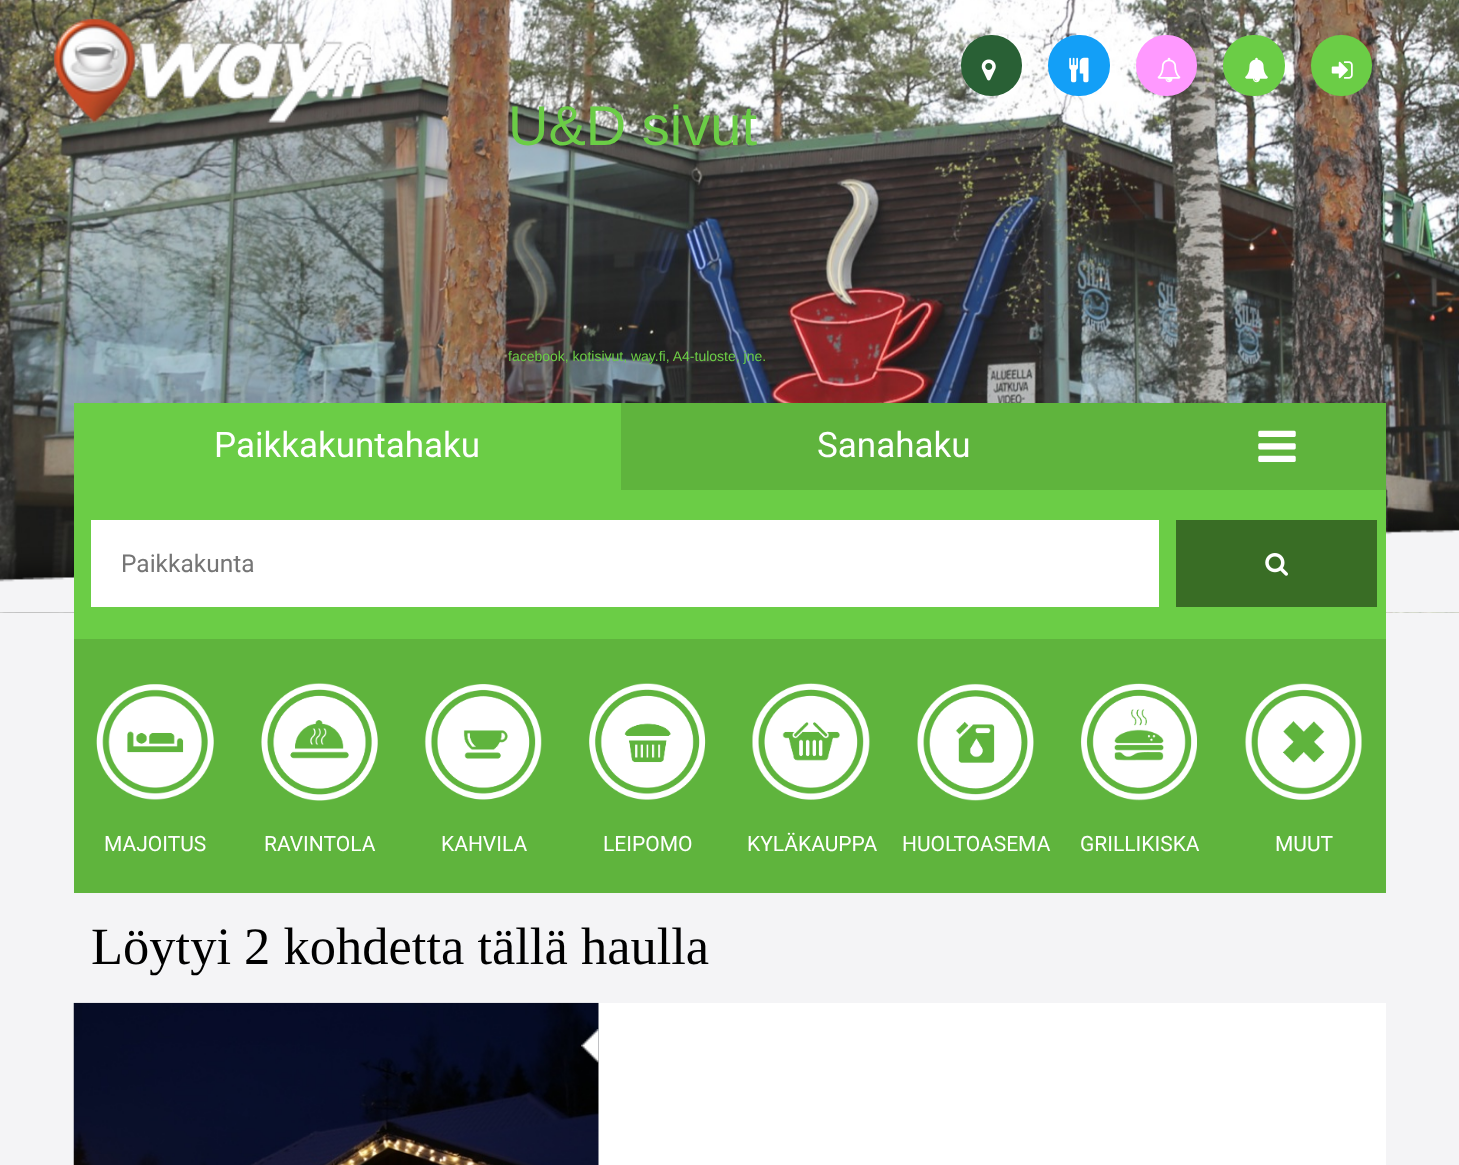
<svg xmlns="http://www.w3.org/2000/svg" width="1459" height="1165">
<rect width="100%" height="100%" fill="#fff"/>
<image x="0" y="0" width="1459" height="613" href="media/6.png"/>
<rect x="961" y="35" width="61" height="61" rx="30" fill="#296035"/>
<image x="981" y="59" width="15" height="22" href="media/1.png"/>
<rect x="1048" y="35" width="62" height="61" rx="30" fill="#139ff7"/>
<image x="1069" y="57" width="20" height="26" href="media/2.png"/>
<rect x="1136" y="35" width="61" height="61" rx="30" fill="#f9f"/>
<image x="1157" y="57" width="24" height="26" href="media/3.png"/>
<rect x="1223" y="35" width="62" height="61" rx="30" fill="#6bcd46"/>
<image x="1245" y="57" width="23" height="26" href="media/4.png"/>
<rect x="1311" y="35" width="61" height="61" rx="30" fill="#6bcd46"/>
<image x="1331" y="61" width="22" height="18" href="media/5.png"/>
<text x="508" y="145" style="font-family:Liberation Sans;font-size:56px;fill:#6bcd46">U&amp;D sivut</text>
<text x="508" y="361" style="font-family:Liberation Sans;font-size:14px;fill:#6bcd46">facebook, kotisivut, way.fi, A4-tuloste, jne.</text>
<image x="54" y="19" width="317" height="104" href="media/7.png"/>
<rect y="613" width="1459" height="552" fill="#f4f4f6"/>
<image x="0" y="504" width="1459" height="109" href="media/18.png"/>
<rect x="74" y="403" width="1312" height="490" fill="#5fb43d"/>
<rect x="74" y="403" width="547" height="87" fill="#6bcd46"/>
<text x="214" y="457" style="font-family:Roboto;font-size:35px;fill:#fff">Paikkakuntahaku</text>
<text x="817" y="457" style="font-family:Roboto;font-size:35px;fill:#fff">Sanahaku</text>
<image x="1258" y="430" width="38" height="32" href="media/8.png"/>
<rect x="74" y="490" width="1312" height="149" fill="#6bcd46"/>
<rect x="91" y="520" width="1068" height="87" fill="#fff"/>
<text x="121" y="572" style="font-family:Roboto;font-size:24.5px;fill:#757575">Paikkakunta</text>
<rect x="1176" y="520" width="201" height="87" fill="#396d25"/>
<image x="1265" y="553" width="23" height="23" href="media/9.png"/>
<image x="96" y="684" width="118" height="116" href="media/10.png"/>
<text x="104" y="851" style="font-family:Roboto;font-size:21px;fill:#fff">MAJOITUS</text>
<image x="261" y="683" width="117" height="118" href="media/11.png"/>
<text x="264" y="851" style="font-family:Roboto;font-size:21px;fill:#fff">RAVINTOLA</text>
<image x="424" y="684" width="118" height="116" href="media/12.png"/>
<text x="441" y="851" style="font-family:Roboto;font-size:21px;fill:#fff">KAHVILA</text>
<image x="589" y="683" width="117" height="117" href="media/13.png"/>
<text x="603" y="851" style="font-family:Roboto;font-size:21px;fill:#fff">LEIPOMO</text>
<image x="752" y="683" width="118" height="117" href="media/14.png"/>
<text x="747" y="851" style="font-family:Roboto;font-size:21px;fill:#fff">KYLÄKAUPPA</text>
<image x="917" y="683" width="117" height="118" href="media/15.png"/>
<text x="902" y="851" style="font-family:Roboto;font-size:21px;fill:#fff">HUOLTOASEMA</text>
<image x="1080" y="683" width="117" height="118" href="media/16.png"/>
<text x="1080" y="851" style="font-family:Roboto;font-size:21px;fill:#fff">GRILLIKISKA</text>
<image x="1245" y="683" width="117" height="117" href="media/17.png"/>
<text x="1275" y="851" style="font-family:Roboto;font-size:21px;fill:#fff">MUUT</text>
<text x="91" y="964" style="font-family:Liberation Serif;font-size:52.5px;fill:#000">Löytyi 2 kohdetta tällä haulla</text>
<rect x="598" y="1003" width="788" height="162" fill="#fff"/>
<image x="73" y="1002" width="526" height="163" href="media/19.png"/>
<image x="581" y="1029" width="18" height="34" href="media/20.png"/>
</svg>
